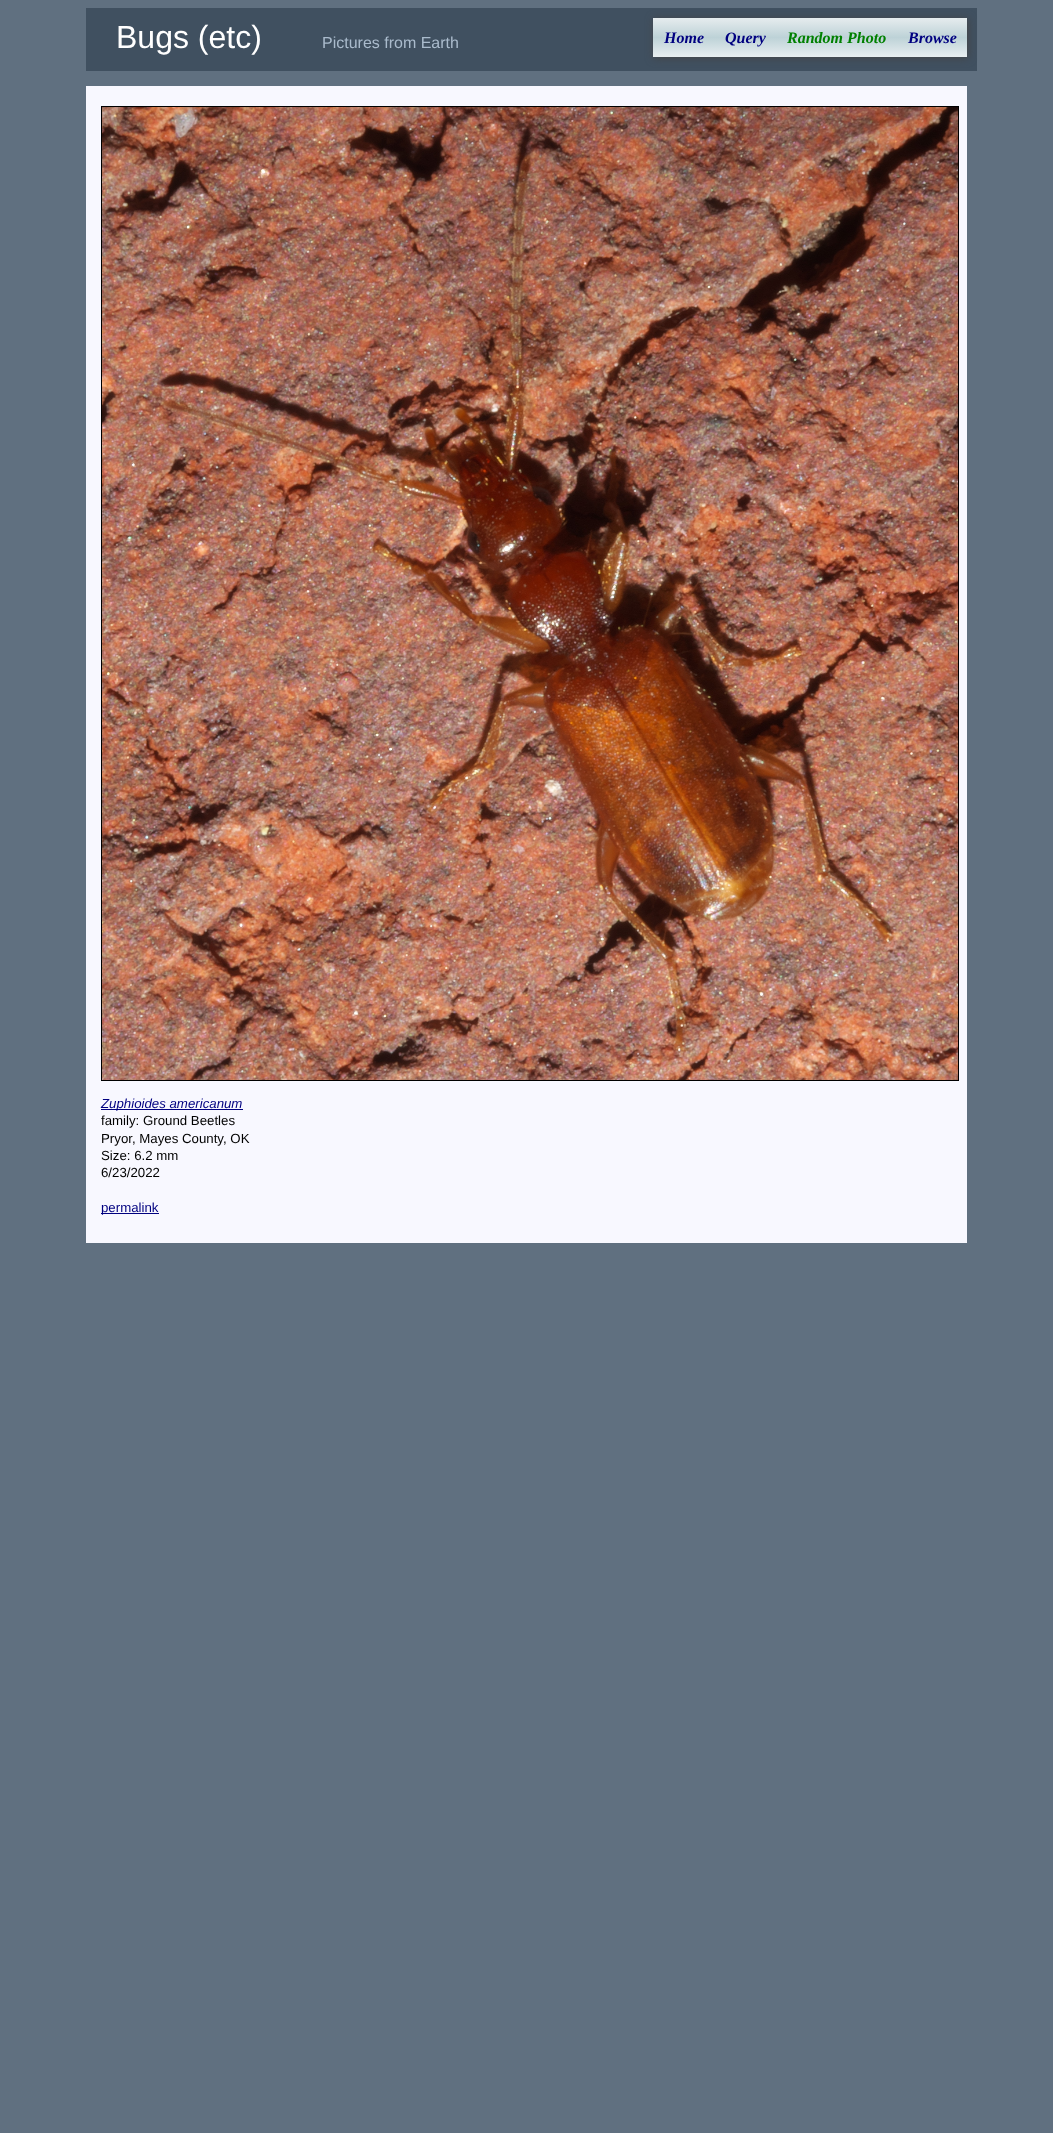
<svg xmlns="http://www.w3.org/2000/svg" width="1053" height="2133">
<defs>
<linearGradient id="g1" gradientUnits="userSpaceOnUse" x1="810" y1="18" x2="810" y2="57"><stop offset="0" stop-color="#e6ecee"/><stop offset="0.5" stop-color="#bdd2d7"/><stop offset="1" stop-color="#e8eef0"/></linearGradient>
</defs>
<rect width="100%" height="100%" fill="#607080"/>
<rect x="86" y="8" width="891" height="63" fill="#405060"/>
<text x="116" y="48" style="font-family:Liberation Sans;font-size:32px;fill:#fff">Bugs (etc)</text>
<text x="322" y="48" style="font-family:Liberation Sans;font-size:16px;fill:#abc">Pictures from Earth</text>
<rect x="654" y="19" width="314" height="39" fill="#444" filter="blur(4px)"/>
<rect x="653" y="18" width="314" height="39" fill="url(#g1)"/>
<text x="664" y="43" style="font-family:Liberation Serif;font-size:16px;font-weight:bold;font-style:italic;fill:#000080">Home</text>
<text x="725" y="43" style="font-family:Liberation Serif;font-size:16px;font-weight:bold;font-style:italic;fill:#000080">Query</text>
<text x="787" y="43" style="font-family:Liberation Serif;font-size:16px;font-weight:bold;font-style:italic;fill:#008000">Random Photo</text>
<text x="908" y="43" style="font-family:Liberation Serif;font-size:16px;font-weight:bold;font-style:italic;fill:#000080">Browse</text>
<rect x="86" y="86" width="881" height="1157" fill="#f8f8ff"/>
<rect x="101.5" y="106.5" width="857" height="974" fill="none" stroke="#000"/>
<image x="102" y="107" width="856" height="973" href="media/1.png"/>
<rect x="101" y="1109" width="142" height="1" fill="#000080"/>
<text x="101" y="1108" style="font-family:Liberation Sans;font-size:13.25px;font-style:italic;fill:#000080">Zuphioides americanum</text>
<text x="101" y="1125" style="font-family:Liberation Sans;font-size:13.25px;fill:#000">family: Ground Beetles</text>
<text x="101" y="1143" style="font-family:Liberation Sans;font-size:13.25px;fill:#000">Pryor, Mayes County, OK</text>
<text x="101" y="1160" style="font-family:Liberation Sans;font-size:13.25px;fill:#000">Size: 6.2 mm</text>
<text x="101" y="1177" style="font-family:Liberation Sans;font-size:13.25px;fill:#000">6/23/2022</text>
<rect x="101" y="1213" width="58" height="1" fill="#000080"/>
<text x="101" y="1212" style="font-family:Liberation Sans;font-size:13.25px;fill:#000080">permalink</text>
</svg>
